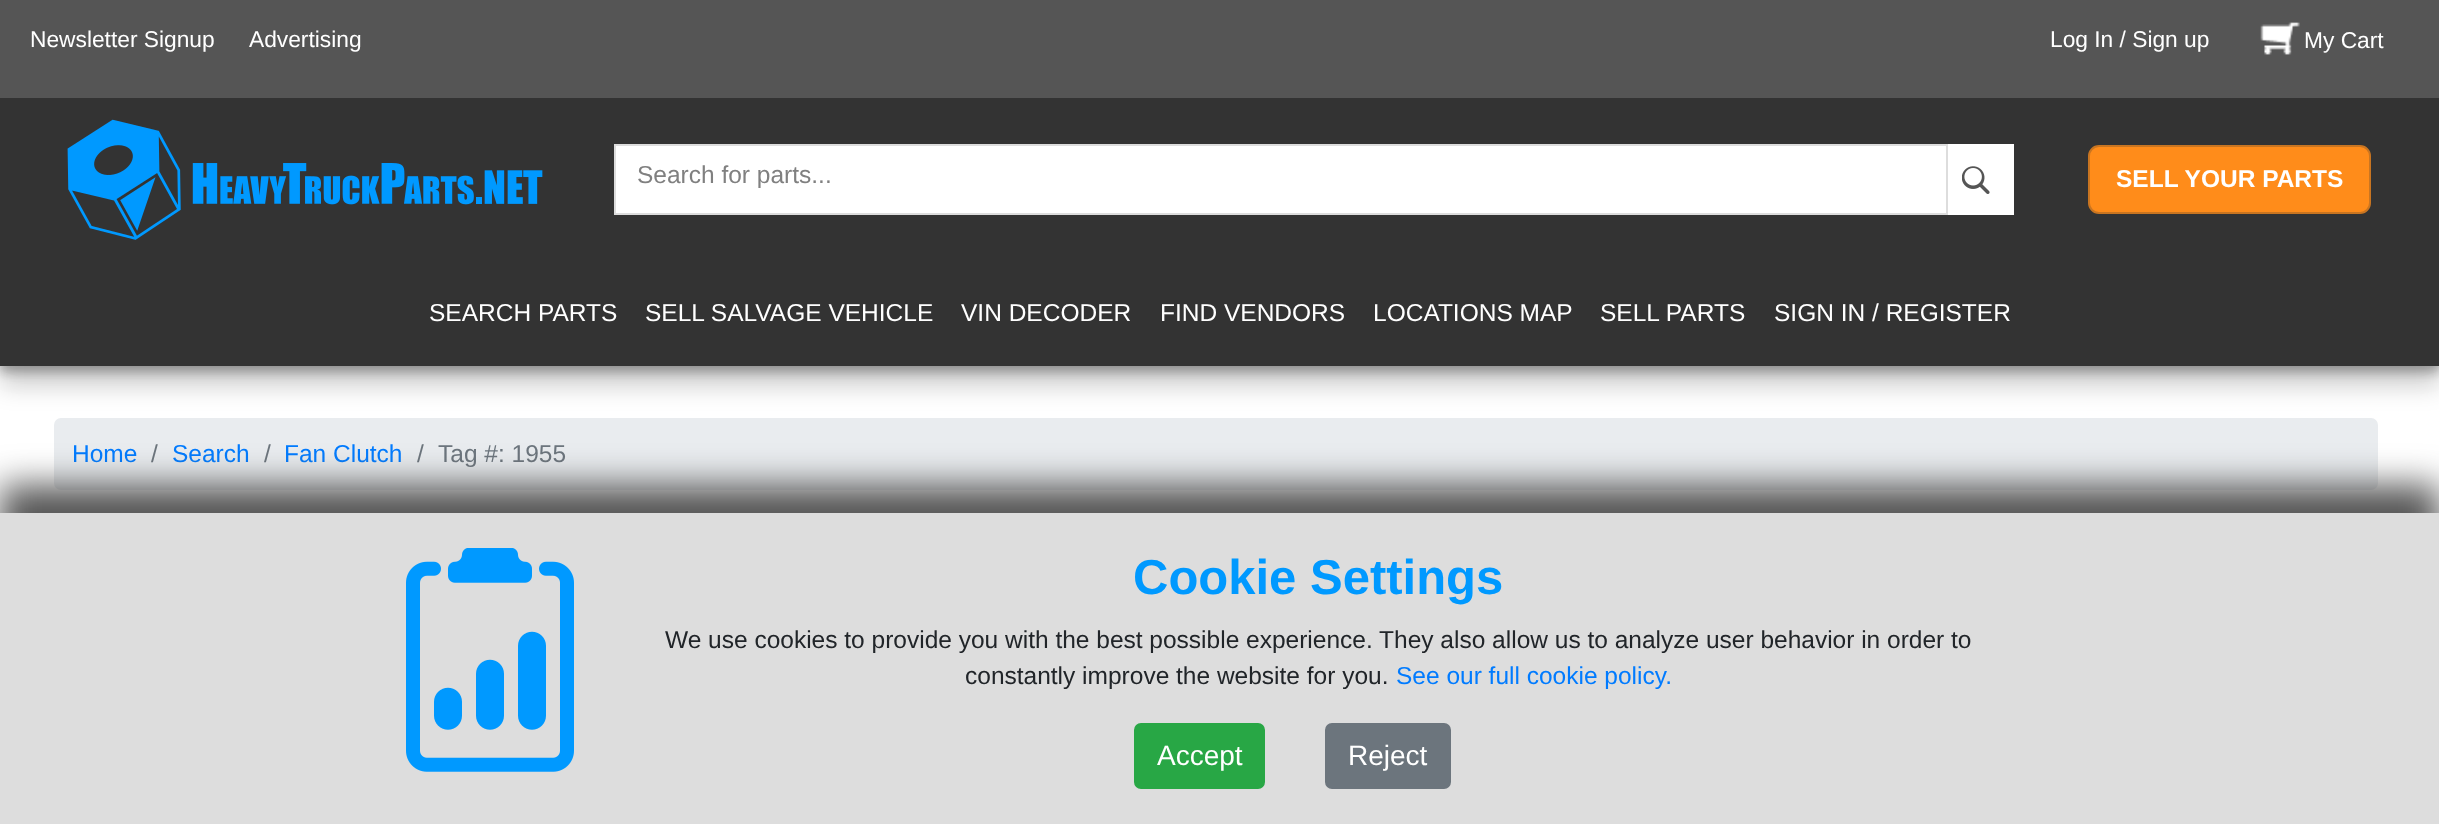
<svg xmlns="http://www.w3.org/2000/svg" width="2439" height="824">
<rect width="100%" height="100%" fill="#fff"/>
<rect y="21" width="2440" height="366" fill="#0000002b" filter="blur(11.5px)"/>
<rect y="7" width="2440" height="366" fill="#0000001f" filter="blur(5px)"/>
<rect y="-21" width="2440" height="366" fill="#0000001f" filter="blur(26px)"/>
<rect y="4" width="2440" height="365" fill="#00000040" filter="blur(7px)"/>
<rect width="2439" height="98" fill="#555"/>
<text x="30" y="47" style="font-family:Liberation Sans;font-size:22.75px;fill:#fff">Newsletter Signup</text>
<text x="249" y="47" style="font-family:Liberation Sans;font-size:22.75px;fill:#fff">Advertising</text>
<text x="2050" y="47" style="font-family:Liberation Sans;font-size:22.75px;fill:#fff">Log In / Sign up</text>
<image x="2260" y="22" width="40" height="33" href="media/1.png"/>
<text x="2304" y="48" style="font-family:Liberation Sans;font-size:22.75px;fill:#fff">My Cart</text>
<rect y="98" width="2439" height="268" fill="#333"/>
<image x="67" y="119" width="476" height="121" href="media/2.png"/>
<rect x="615" y="145" width="1332" height="69" fill="#fff" stroke="#ddd" stroke-width="2"/>
<text x="637" y="183" style="font-family:Liberation Sans;font-size:24.5px;fill:#808080">Search for parts...</text>
<rect x="1948" y="144" width="66" height="71" fill="#fff"/>
<image x="1962" y="166" width="28" height="28" href="media/3.png"/>
<rect x="2089" y="146" width="281" height="67" rx="10" fill="#ff8c1a" stroke="#c97521" stroke-width="2"/>
<text x="2116" y="187" style="font-family:Liberation Sans;font-size:24.5px;font-weight:bold;fill:#fff">SELL YOUR PARTS</text>
<text x="429" y="321" style="font-family:Liberation Sans;font-size:24.5px;fill:#fff">SEARCH PARTS</text>
<text x="645" y="321" style="font-family:Liberation Sans;font-size:24.5px;fill:#fff">SELL SALVAGE VEHICLE</text>
<text x="961" y="321" style="font-family:Liberation Sans;font-size:24.5px;fill:#fff">VIN DECODER</text>
<text x="1160" y="321" style="font-family:Liberation Sans;font-size:24.5px;fill:#fff">FIND VENDORS</text>
<text x="1373" y="321" style="font-family:Liberation Sans;font-size:24.5px;fill:#fff">LOCATIONS MAP</text>
<text x="1600" y="321" style="font-family:Liberation Sans;font-size:24.5px;fill:#fff">SELL PARTS</text>
<text x="1774" y="321" style="font-family:Liberation Sans;font-size:24.5px;fill:#fff">SIGN IN / REGISTER</text>
<rect x="54" y="418" width="2324" height="72" rx="7" fill="#e9ecef"/>
<text x="72" y="462" style="font-family:Liberation Sans;font-size:24.5px;fill:#007bff">Home</text>
<text x="151" y="462" style="font-family:Liberation Sans;font-size:24.5px;fill:#6c757d">/</text>
<text x="172" y="462" style="font-family:Liberation Sans;font-size:24.5px;fill:#007bff">Search</text>
<text x="264" y="462" style="font-family:Liberation Sans;font-size:24.5px;fill:#6c757d">/</text>
<text x="284" y="462" style="font-family:Liberation Sans;font-size:24.5px;fill:#007bff">Fan Clutch</text>
<text x="417" y="462" style="font-family:Liberation Sans;font-size:24.5px;fill:#6c757d">/</text>
<text x="438" y="462" style="font-family:Liberation Sans;font-size:24.5px;fill:#6c757d">Tag #: 1955</text>
<rect y="485" width="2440" height="311" fill="#555" filter="blur(17.5px)"/>
<rect y="513" width="2439" height="311" fill="#ddd"/>
<image x="406" y="548" width="168" height="224" href="media/4.png"/>
<text x="1133" y="594" style="font-family:Liberation Sans;font-size:49px;font-weight:bold;fill:#09f">Cookie Settings</text>
<text x="665" y="648" style="font-family:Liberation Sans;font-size:24.5px;fill:#212529">We use cookies to provide you with the best possible experience. They also allow us to analyze user behavior in order to</text>
<text x="965" y="684" style="font-family:Liberation Sans;font-size:24.5px;fill:#212529">constantly improve the website for you.</text>
<text x="1396" y="684" style="font-family:Liberation Sans;font-size:24.5px;fill:#007bff">See our full cookie policy.</text>
<rect x="1135" y="724" width="129" height="64" rx="6" fill="#28a745" stroke="#28a745" stroke-width="2"/>
<text x="1157" y="765" style="font-family:Liberation Sans;font-size:28px;fill:#fff">Accept</text>
<rect x="1326" y="724" width="124" height="64" rx="6" fill="#6c757d" stroke="#6c757d" stroke-width="2"/>
<text x="1348" y="765" style="font-family:Liberation Sans;font-size:28px;fill:#fff">Reject</text>
</svg>
